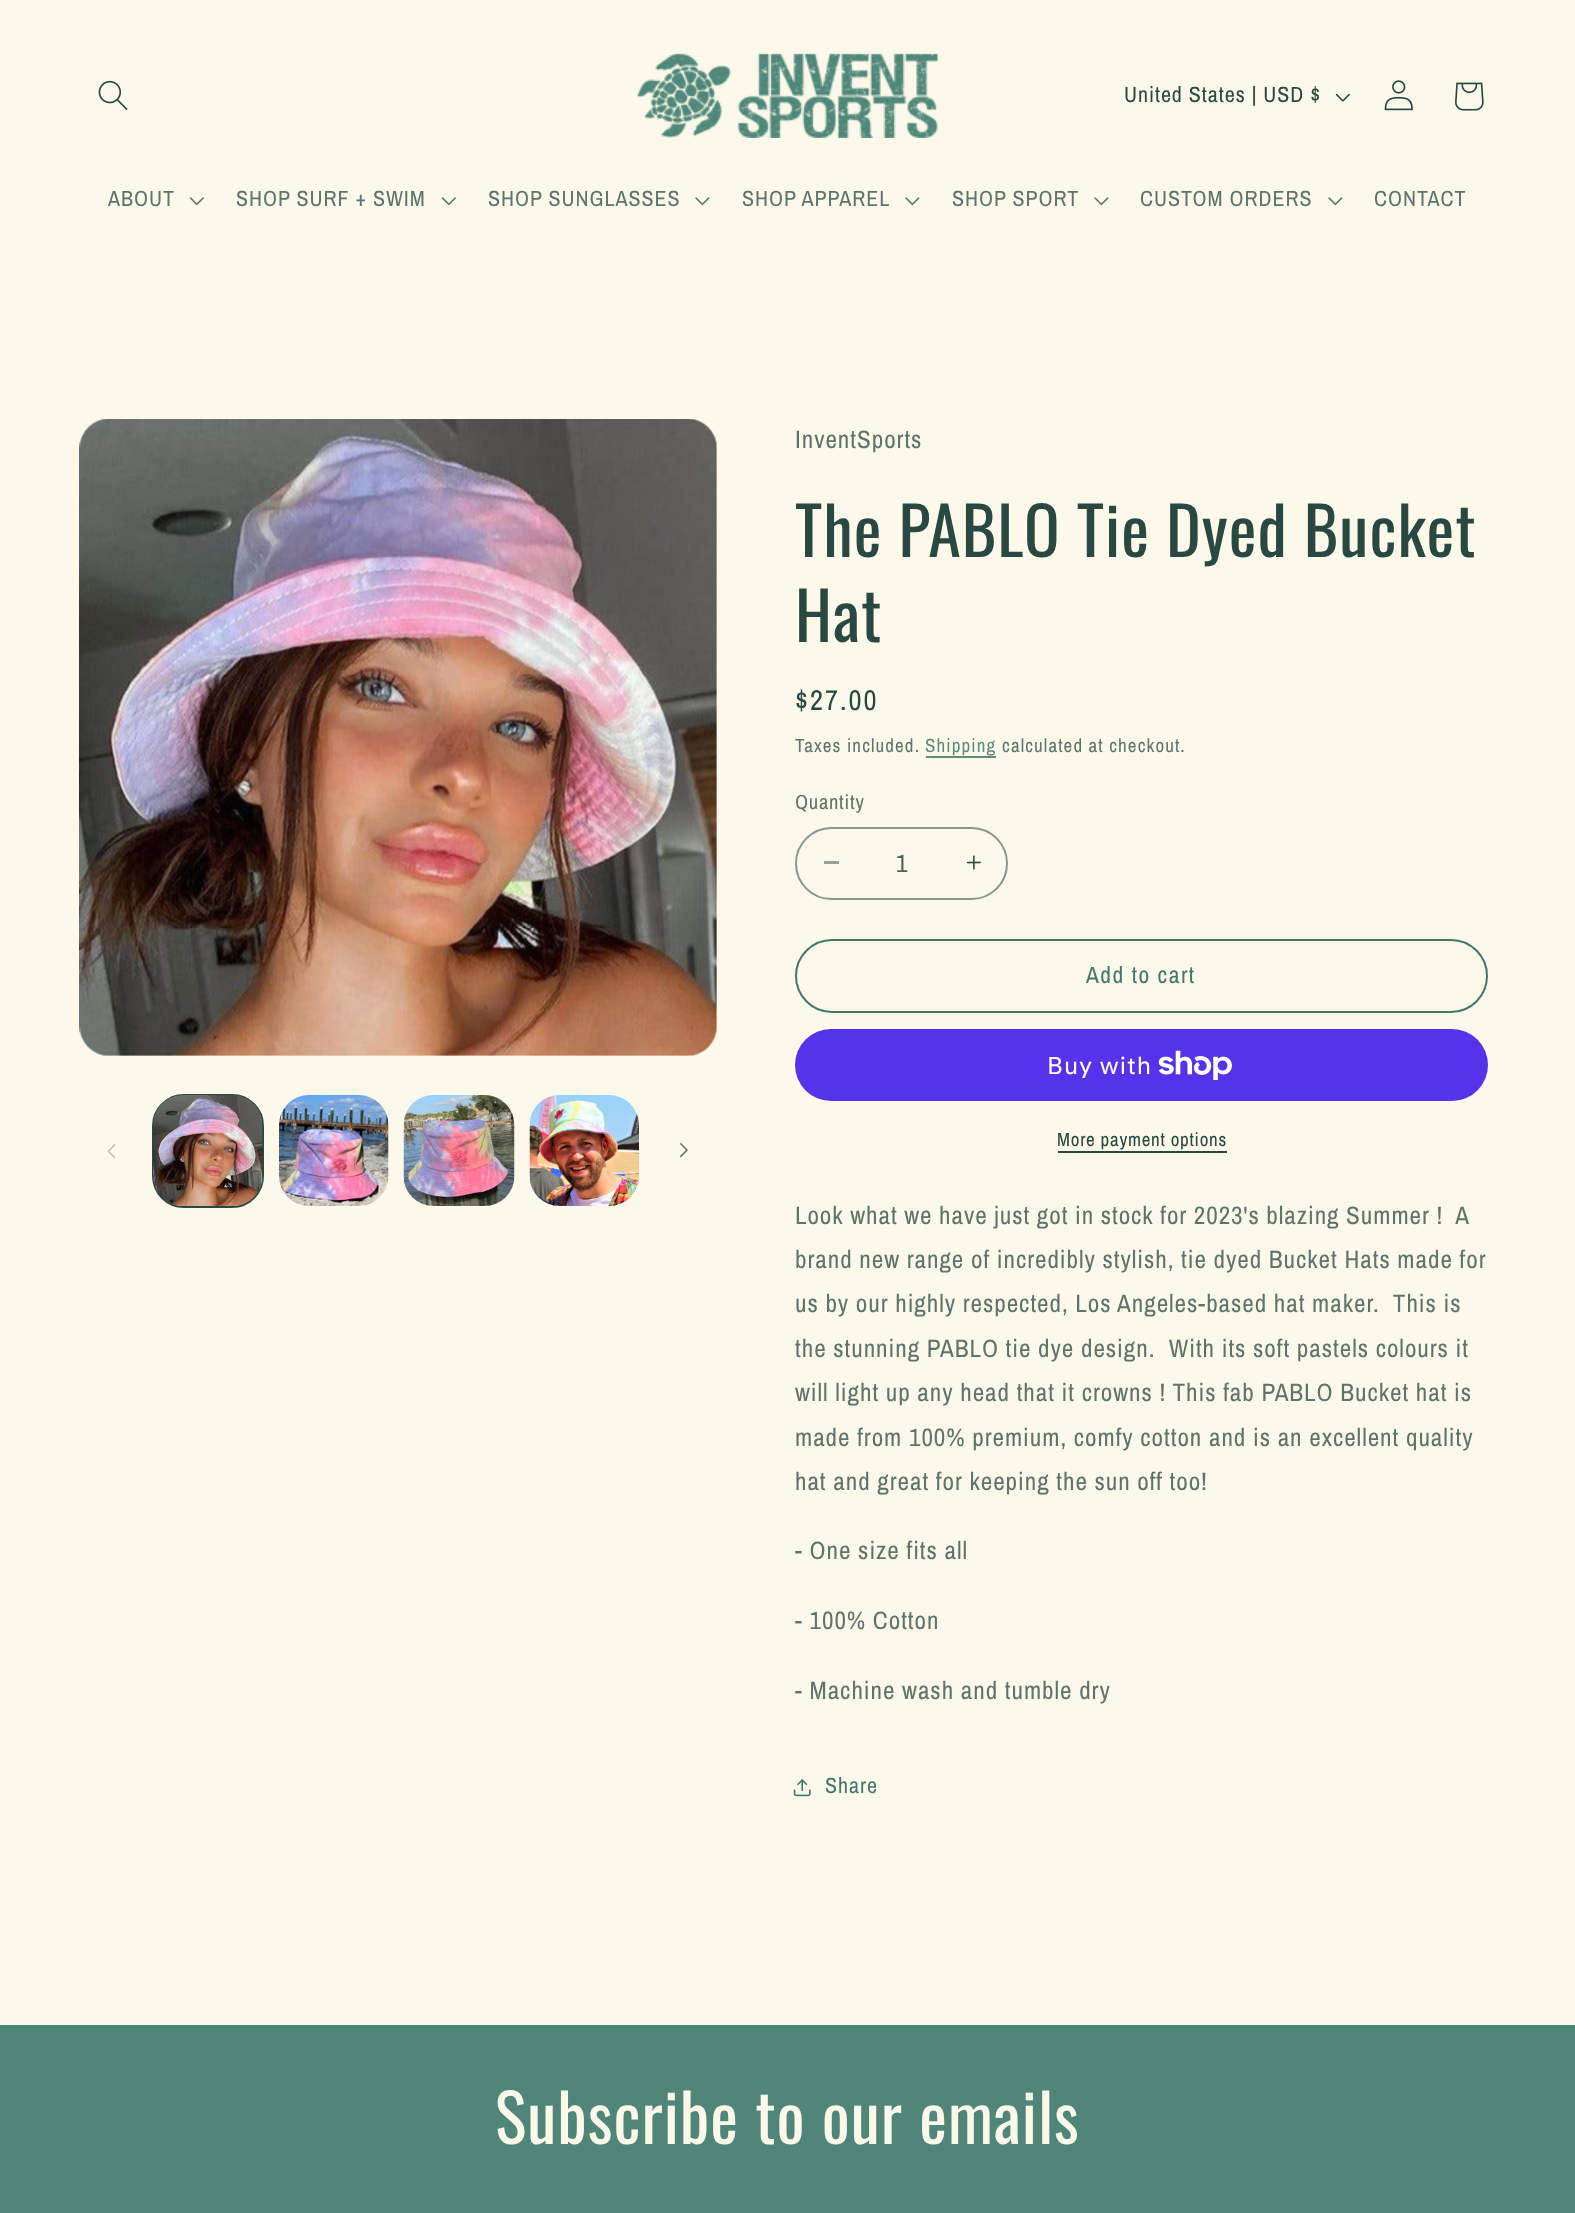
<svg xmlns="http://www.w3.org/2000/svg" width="1575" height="2213">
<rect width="100%" height="100%" fill="#fcf9ea"/>
<image x="98" y="80" width="30" height="30" href="media/1.png"/>
<image x="637" y="53" width="301" height="85" href="media/2.png"/>
<text x="1124" y="102" style="font-family:Archivo Narrow;font-size:22px;letter-spacing:0.95px;fill:#294841">United States | USD $</text>
<image x="1335" y="93" width="15" height="9" href="media/3.png"/>
<image x="1384" y="80" width="29" height="31" href="media/4.png"/>
<image x="1455" y="82" width="29" height="29" href="media/5.png"/>
<text x="108" y="206" style="font-family:Archivo Narrow;font-size:22px;letter-spacing:0.95px;fill:#5e746b">ABOUT</text>
<image x="189" y="197" width="15" height="9" href="media/6.png"/>
<text x="236" y="206" style="font-family:Archivo Narrow;font-size:22px;letter-spacing:0.95px;fill:#5e746b">SHOP SURF + SWIM</text>
<image x="441" y="197" width="15" height="9" href="media/6.png"/>
<text x="488" y="206" style="font-family:Archivo Narrow;font-size:22px;letter-spacing:0.95px;fill:#5e746b">SHOP SUNGLASSES</text>
<image x="695" y="197" width="15" height="9" href="media/7.png"/>
<text x="742" y="206" style="font-family:Archivo Narrow;font-size:22px;letter-spacing:0.95px;fill:#5e746b">SHOP APPAREL</text>
<image x="905" y="197" width="15" height="9" href="media/7.png"/>
<text x="952" y="206" style="font-family:Archivo Narrow;font-size:22px;letter-spacing:0.95px;fill:#5e746b">SHOP SPORT</text>
<image x="1094" y="197" width="15" height="9" href="media/7.png"/>
<text x="1140" y="206" style="font-family:Archivo Narrow;font-size:22px;letter-spacing:0.95px;fill:#5e746b">CUSTOM ORDERS</text>
<image x="1328" y="197" width="15" height="9" href="media/7.png"/>
<text x="1374" y="206" style="font-family:Archivo Narrow;font-size:22px;letter-spacing:0.95px;fill:#5e746b">CONTACT</text>
<image x="79" y="419" width="638" height="637" href="media/8.png"/>
<image x="107" y="1144" width="9" height="15" href="media/9.png"/>
<rect x="153" y="1095" width="110" height="112" rx="31" fill="none" stroke="#294841" stroke-width="2"/>
<image x="153" y="1095" width="110" height="111" href="media/10.png"/>
<image x="279" y="1095" width="110" height="111" href="media/11.png"/>
<image x="403" y="1095" width="112" height="111" href="media/12.png"/>
<image x="529" y="1095" width="110" height="111" href="media/13.png"/>
<image x="680" y="1143" width="8" height="15" href="media/14.png"/>
<text x="795" y="448" style="font-family:Archivo Narrow;font-size:25.2px;letter-spacing:0.95px;fill:#5e746b">InventSports</text>
<text x="795" y="557" style="font-family:Oswald;font-size:66px;letter-spacing:1px;fill:#294841">The PABLO Tie Dyed Bucket</text>
<text x="795" y="642" style="font-family:Oswald;font-size:66px;letter-spacing:1px;fill:#294841">Hat</text>
<text x="795" y="710" style="font-family:Archivo Narrow;font-size:28.5px;letter-spacing:2px;fill:#294841">$27.00</text>
<text x="795" y="752" style="font-family:Archivo Narrow;font-size:19px;letter-spacing:1.1px;fill:#5e746b">Taxes included.</text>
<text x="925" y="752" style="font-family:Archivo Narrow;font-size:19px;letter-spacing:1.1px;fill:#5f8a7d">Shipping</text>
<rect x="926" y="756" width="70" height="2" fill="#5f8a7d"/>
<text x="1002" y="752" style="font-family:Archivo Narrow;font-size:19px;letter-spacing:1.1px;fill:#5e746b">calculated at checkout.</text>
<text x="795" y="809" style="font-family:Archivo Narrow;font-size:20.5px;letter-spacing:0.75px;fill:#5e746b">Quantity</text>
<rect x="824" y="861" width="15" height="3" fill="#93a196"/>
<image x="966" y="855" width="15" height="15" href="media/15.png"/>
<rect x="796" y="828" width="211" height="71" rx="35.5" fill="none" stroke="#88988d" stroke-width="2"/>
<text x="896" y="872" style="font-family:Archivo Narrow;font-size:25.2px;fill:#49635a">1</text>
<rect x="796" y="940" width="691" height="72" rx="36" fill="none" stroke="#43766a" stroke-width="2"/>
<text x="1086" y="983" style="font-family:Archivo Narrow;font-size:23.5px;letter-spacing:1.5px;fill:#43766a">Add to cart</text>
<rect x="795" y="1029" width="693" height="72" rx="36" fill="#5433eb"/>
<text x="1047" y="1074" style="font-family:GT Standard;font-size:24px;letter-spacing:0.95px;fill:#fff">Buy with</text>
<image x="1158" y="1050" width="74" height="30" href="media/16.png"/>
<text x="1057" y="1146" style="font-family:Archivo Narrow;font-size:19px;letter-spacing:0.75px;fill:#294841">More payment options</text>
<rect x="1058" y="1151" width="169" height="2" fill="#294841"/>
<text x="795" y="1224" word-spacing="-0.1" style="font-family:Archivo Narrow;font-size:25.2px;letter-spacing:0.95px;fill:#5e746b" xml:space="preserve">Look what we have just got in stock for 2023's blazing Summer !  A</text>
<text x="795" y="1268" style="font-family:Archivo Narrow;font-size:25.2px;letter-spacing:0.95px;fill:#5e746b">brand new range of incredibly stylish, tie dyed Bucket Hats made for</text>
<text x="795" y="1312" style="font-family:Archivo Narrow;font-size:25.2px;letter-spacing:0.95px;fill:#5e746b" xml:space="preserve">us by our highly respected, Los Angeles-based hat maker.  This is</text>
<text x="795" y="1357" style="font-family:Archivo Narrow;font-size:25.2px;letter-spacing:0.95px;fill:#5e746b" xml:space="preserve">the stunning PABLO tie dye design.  With its soft pastels colours it</text>
<text x="795" y="1401" style="font-family:Archivo Narrow;font-size:25.2px;letter-spacing:0.95px;fill:#5e746b">will light up any head that it crowns ! This fab PABLO Bucket hat is</text>
<text x="795" y="1446" style="font-family:Archivo Narrow;font-size:25.2px;letter-spacing:0.95px;fill:#5e746b">made from 100% premium, comfy cotton and is an excellent quality</text>
<text x="795" y="1490" style="font-family:Archivo Narrow;font-size:25.2px;letter-spacing:0.95px;fill:#5e746b">hat and great for keeping the sun off too!</text>
<text x="795" y="1559" style="font-family:Archivo Narrow;font-size:25.2px;letter-spacing:0.95px;fill:#5e746b">- One size fits all</text>
<text x="795" y="1629" style="font-family:Archivo Narrow;font-size:25.2px;letter-spacing:0.95px;fill:#5e746b">- 100% Cotton</text>
<text x="795" y="1699" style="font-family:Archivo Narrow;font-size:25.2px;letter-spacing:0.95px;fill:#5e746b">- Machine wash and tumble dry</text>
<image x="793" y="1779" width="18" height="18" href="media/17.png"/>
<text x="825" y="1793" style="font-family:Archivo Narrow;font-size:22px;letter-spacing:0.95px;fill:#43766a">Share</text>
<rect y="2025" width="1575" height="188" fill="#4f8679"/>
<text x="495" y="2144" style="font-family:Oswald;font-size:66px;letter-spacing:1px;fill:#fcf9ea">Subscribe to our emails</text>
</svg>
